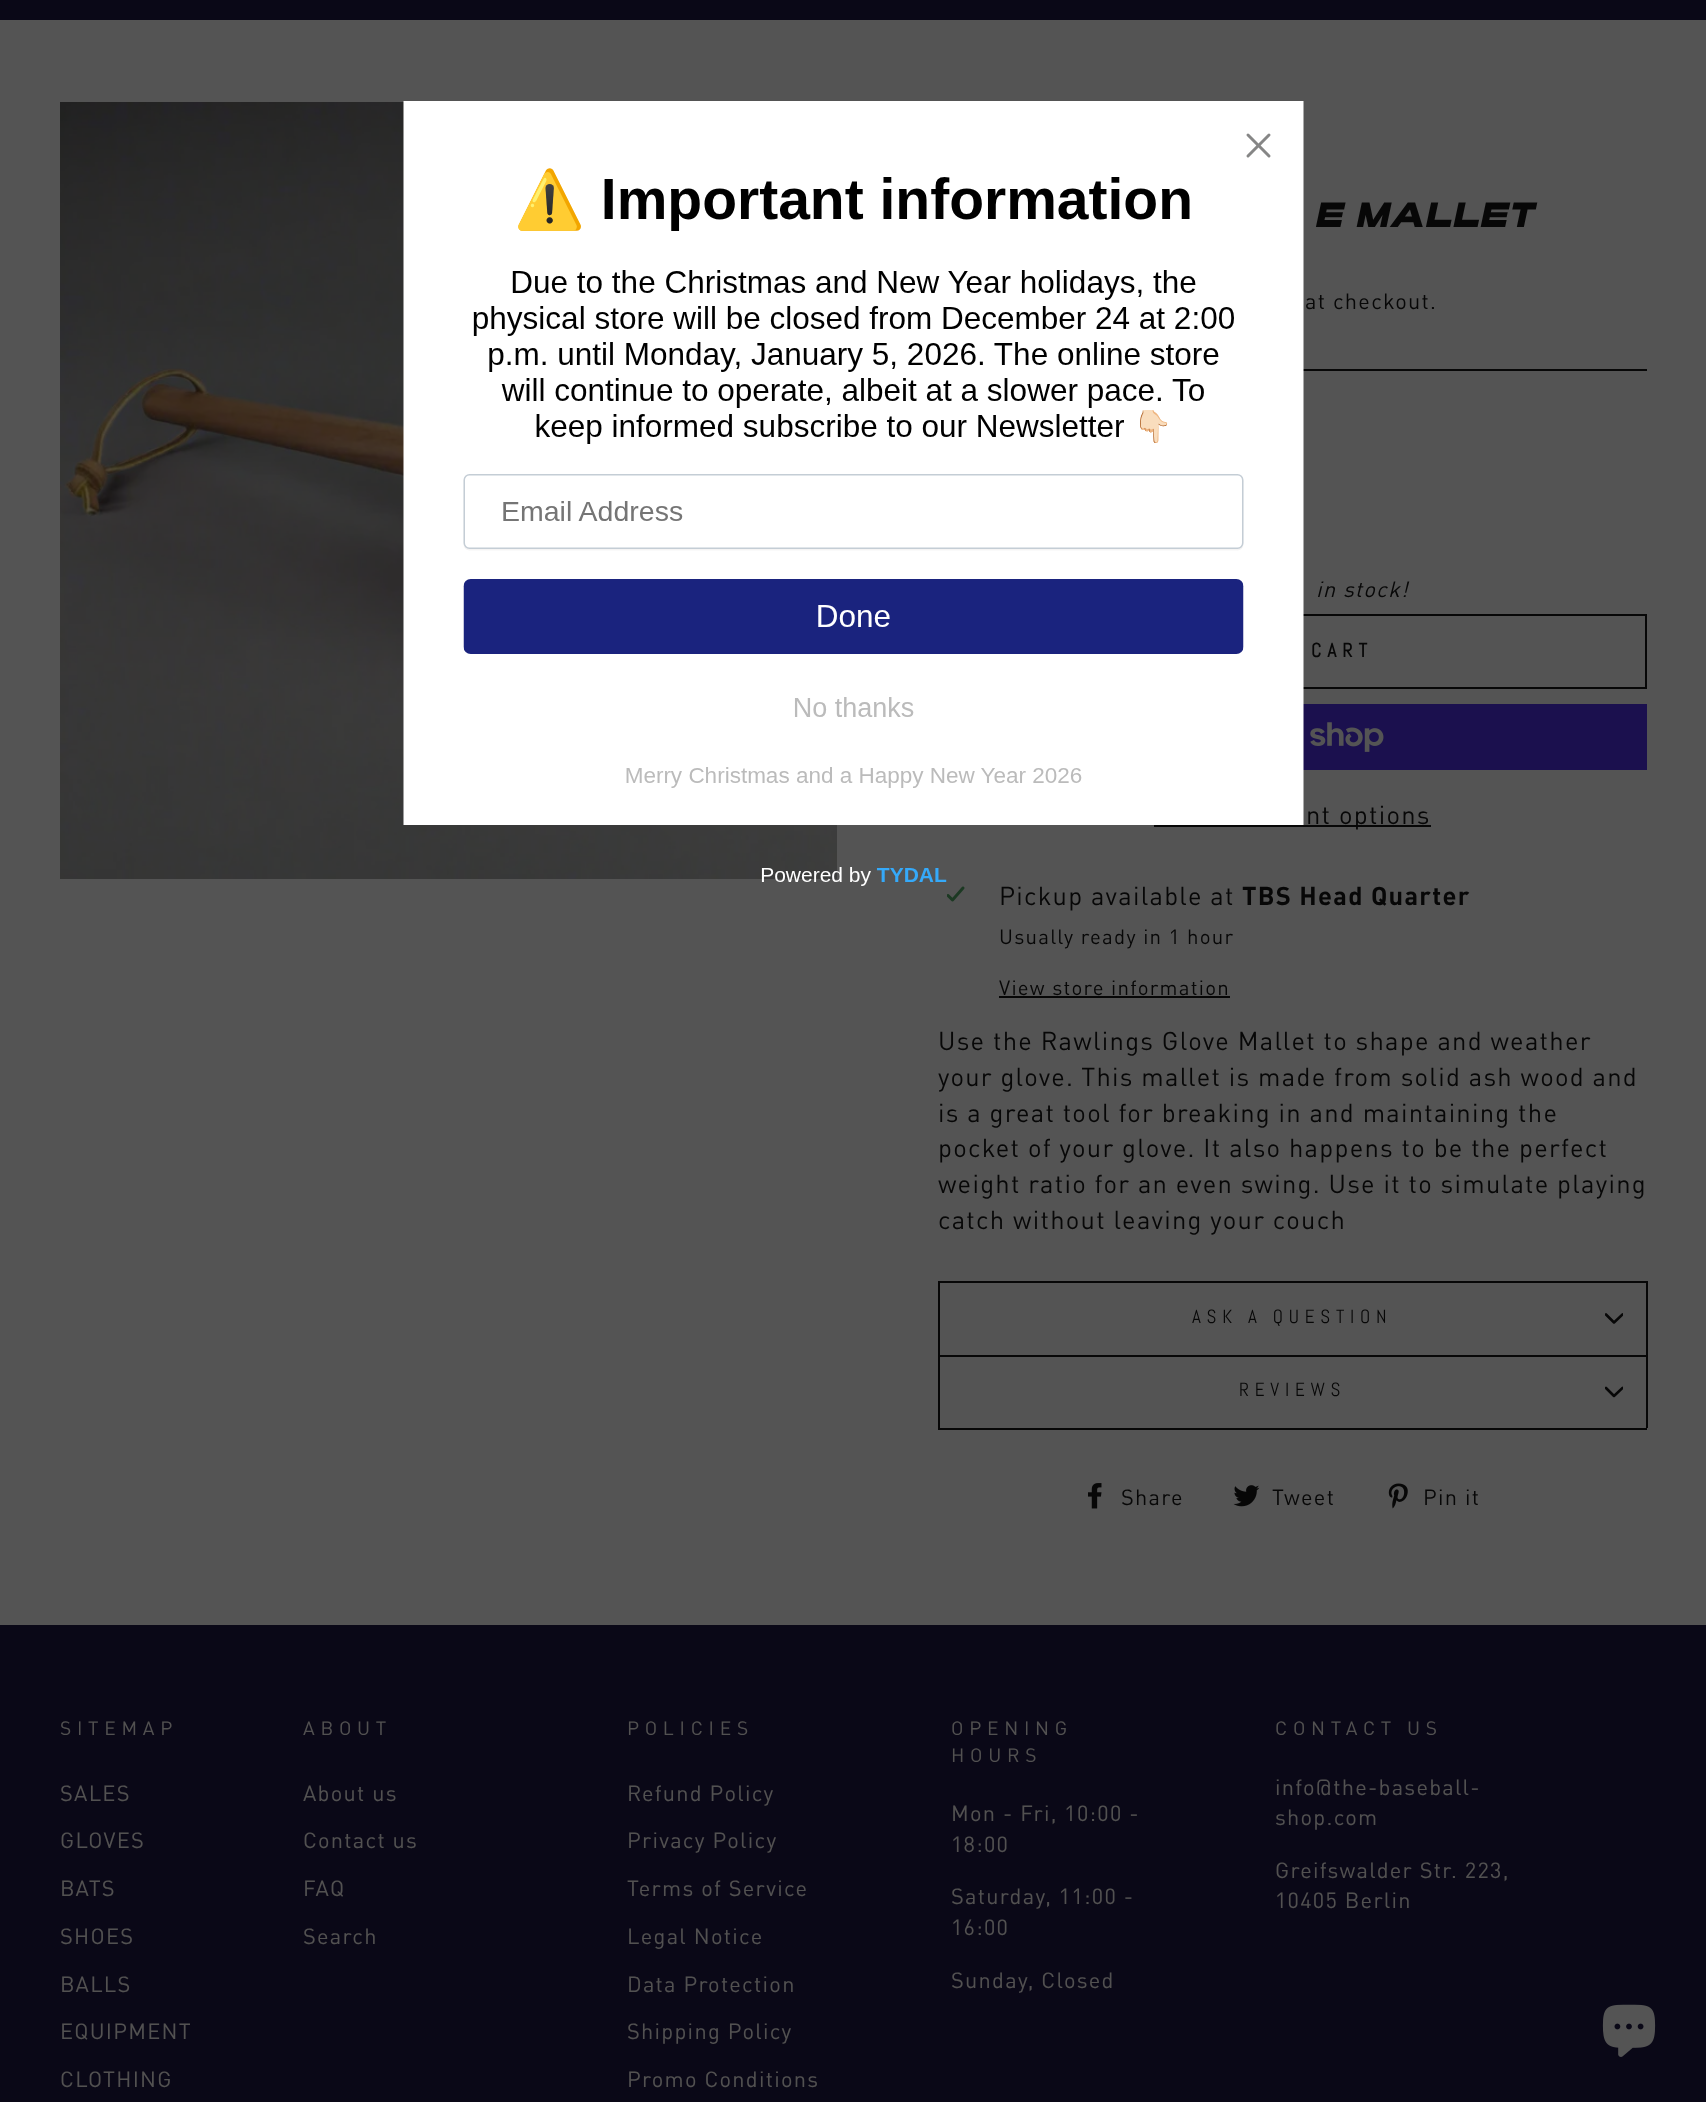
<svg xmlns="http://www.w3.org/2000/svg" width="1706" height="2102">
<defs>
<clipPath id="clip1"><rect x="1605" y="1310" width="18" height="18"/></clipPath>
<clipPath id="clip2"><rect x="1605" y="1383" width="18" height="18"/></clipPath>
</defs>
<rect width="100%" height="100%" fill="#fff"/>
<rect width="1706" height="20" fill="#1f1946"/>
<image x="60" y="102" width="777" height="777" href="media/2.png"/>
<text x="1314" y="227" style="font-family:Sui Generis;font-size:35.75px;font-weight:900;font-style:italic;letter-spacing:1px;fill:#181818">E MALLET</text>
<text x="1305" y="309" style="font-family:DIN;font-size:21.75px;letter-spacing:1.27px;fill:#181818">at checkout.</text>
<rect x="1303" y="369" width="344" height="2" fill="#181818"/>
<text x="1316" y="597" style="font-family:DIN;font-size:21.75px;font-style:italic;letter-spacing:1.27px;fill:#181818">in stock!</text>
<rect x="939" y="615" width="707" height="73" fill="none" stroke="#181818" stroke-width="2"/>
<text x="1311" y="657" style="font-family:Abel;font-size:19.5px;font-weight:bold;letter-spacing:6px;fill:#181818">CART</text>
<rect x="1303" y="704" width="344" height="66" fill="#5433eb"/>
<image x="1310" y="722" width="74" height="30" href="media/3.png"/>
<rect x="1154" y="825" width="277" height="2" fill="#181818"/>
<text x="1306" y="824" style="font-family:DIN;font-size:25.5px;letter-spacing:1.27px;fill:#181818">nt options</text>
<image x="947" y="886" width="18" height="16" href="media/4.png"/>
<text x="999" y="905" style="font-family:DIN;font-size:25.5px;letter-spacing:1.27px;fill:#181818">Pickup available at</text>
<text x="1242" y="905" style="font-family:DIN;font-size:25.5px;font-weight:bold;letter-spacing:1.27px;fill:#181818">TBS Head Quarter</text>
<text x="999" y="944" style="font-family:DIN;font-size:20.4px;letter-spacing:1.27px;fill:#181818">Usually ready in 1 hour</text>
<text x="999" y="995" style="font-family:DIN;font-size:20.4px;letter-spacing:1.27px;fill:#181818">View store information</text>
<rect x="999" y="996" width="231" height="2" fill="#181818"/>
<text x="938" y="1050" style="font-family:DIN;font-size:25.5px;letter-spacing:1.27px;fill:#181818">Use the Rawlings Glove Mallet to shape and weather</text>
<text x="938" y="1086" style="font-family:DIN;font-size:25.5px;letter-spacing:1.27px;fill:#181818">your glove. This mallet is made from solid ash wood and</text>
<text x="938" y="1122" style="font-family:DIN;font-size:25.5px;letter-spacing:1.27px;fill:#181818">is a great tool for breaking in and maintaining the</text>
<text x="938" y="1157" style="font-family:DIN;font-size:25.5px;letter-spacing:1.27px;fill:#181818">pocket of your glove. It also happens to be the perfect</text>
<text x="938" y="1193" style="font-family:DIN;font-size:25.5px;letter-spacing:1.27px;fill:#181818">weight ratio for an even swing. Use it to simulate playing</text>
<text x="938" y="1229" style="font-family:DIN;font-size:25.5px;letter-spacing:1.27px;fill:#181818">catch without leaving your couch</text>
<rect x="938" y="1428" width="709" height="2" fill="#181818"/>
<rect x="938" y="1281" width="709" height="2" fill="#181818"/>
<rect x="1646" y="1281" width="2" height="74" fill="#181818"/>
<rect x="938" y="1281" width="2" height="74" fill="#181818"/>
<text x="1192" y="1323" style="font-family:Abel;font-size:19.1px;letter-spacing:5.75px;fill:#181818">ASK A QUESTION</text>
<g clip-path="url(#clip1)">
<path d="M1606 1314.5l8 8l8.5-8" fill="none" stroke="#181818" stroke-width="2.6" stroke-linecap="round" stroke-linejoin="round"/>
</g>
<rect x="938" y="1355" width="709" height="2" fill="#181818"/>
<rect x="1646" y="1355" width="2" height="73" fill="#181818"/>
<rect x="938" y="1355" width="2" height="73" fill="#181818"/>
<text x="1239" y="1396" style="font-family:Abel;font-size:19.1px;letter-spacing:5.75px;fill:#181818">REVIEWS</text>
<g clip-path="url(#clip2)">
<path d="M1606 1388l8 8l8.5-8" fill="none" stroke="#181818" stroke-width="2.6" stroke-linecap="round" stroke-linejoin="round"/>
</g>
<image x="1088" y="1483" width="14" height="26" href="media/5.png"/>
<text x="1121" y="1505" style="font-family:DIN;font-size:21.75px;letter-spacing:1.27px;fill:#181818">Share</text>
<image x="1233" y="1485" width="27" height="22" href="media/6.png"/>
<text x="1272" y="1505" style="font-family:DIN;font-size:21.75px;letter-spacing:1.27px;fill:#181818">Tweet</text>
<image x="1388" y="1483" width="20" height="26" href="media/7.png"/>
<text x="1423" y="1505" style="font-family:DIN;font-size:21.75px;letter-spacing:1.27px;fill:#181818">Pin it</text>
<rect y="1625" width="1706" height="477" fill="#1f1946"/>
<text x="60" y="1735" style="font-family:DIN;font-size:19.1px;letter-spacing:5.75px;fill:#f7f4f4">SITEMAP</text>
<text x="60" y="1801" style="font-family:DIN;font-size:21.75px;letter-spacing:1.27px;fill:#f7f4f4">SALES</text>
<text x="60" y="1848" style="font-family:DIN;font-size:21.75px;letter-spacing:1.27px;fill:#f7f4f4">GLOVES</text>
<text x="60" y="1896" style="font-family:DIN;font-size:21.75px;letter-spacing:1.27px;fill:#f7f4f4">BATS</text>
<text x="60" y="1944" style="font-family:DIN;font-size:21.75px;letter-spacing:1.27px;fill:#f7f4f4">SHOES</text>
<text x="60" y="1992" style="font-family:DIN;font-size:21.75px;letter-spacing:1.27px;fill:#f7f4f4">BALLS</text>
<text x="60" y="2039" style="font-family:DIN;font-size:21.75px;letter-spacing:1.27px;fill:#f7f4f4">EQUIPMENT</text>
<text x="60" y="2087" style="font-family:DIN;font-size:21.75px;letter-spacing:1.27px;fill:#f7f4f4">CLOTHING</text>
<text x="303" y="1735" style="font-family:DIN;font-size:19.1px;letter-spacing:5.75px;fill:#f7f4f4">ABOUT</text>
<text x="303" y="1801" style="font-family:DIN;font-size:21.75px;letter-spacing:1.27px;fill:#f7f4f4">About us</text>
<text x="303" y="1848" style="font-family:DIN;font-size:21.75px;letter-spacing:1.27px;fill:#f7f4f4">Contact us</text>
<text x="303" y="1896" style="font-family:DIN;font-size:21.75px;letter-spacing:1.27px;fill:#f7f4f4">FAQ</text>
<text x="303" y="1944" style="font-family:DIN;font-size:21.75px;letter-spacing:1.27px;fill:#f7f4f4">Search</text>
<text x="627" y="1735" style="font-family:DIN;font-size:19.1px;letter-spacing:5.75px;fill:#f7f4f4">POLICIES</text>
<text x="627" y="1801" style="font-family:DIN;font-size:21.75px;letter-spacing:1.27px;fill:#f7f4f4">Refund Policy</text>
<text x="627" y="1848" style="font-family:DIN;font-size:21.75px;letter-spacing:1.27px;fill:#f7f4f4">Privacy Policy</text>
<text x="627" y="1896" style="font-family:DIN;font-size:21.75px;letter-spacing:1.27px;fill:#f7f4f4">Terms of Service</text>
<text x="627" y="1944" style="font-family:DIN;font-size:21.75px;letter-spacing:1.27px;fill:#f7f4f4">Legal Notice</text>
<text x="627" y="1992" style="font-family:DIN;font-size:21.75px;letter-spacing:1.27px;fill:#f7f4f4">Data Protection</text>
<text x="627" y="2039" style="font-family:DIN;font-size:21.75px;letter-spacing:1.27px;fill:#f7f4f4">Shipping Policy</text>
<text x="627" y="2087" style="font-family:DIN;font-size:21.75px;letter-spacing:1.27px;fill:#f7f4f4">Promo Conditions</text>
<text x="951" y="1735" style="font-family:DIN;font-size:19.1px;letter-spacing:5.75px;fill:#f7f4f4">OPENING</text>
<text x="951" y="1762" style="font-family:DIN;font-size:19.1px;letter-spacing:5.75px;fill:#f7f4f4">HOURS</text>
<text x="951" y="1821" style="font-family:DIN;font-size:21.75px;letter-spacing:1.27px;fill:#f7f4f4">Mon - Fri, 10:00 -</text>
<text x="951" y="1852" style="font-family:DIN;font-size:21.75px;letter-spacing:1.27px;fill:#f7f4f4">18:00</text>
<text x="951" y="1904" style="font-family:DIN;font-size:21.75px;letter-spacing:1.27px;fill:#f7f4f4">Saturday, 11:00 -</text>
<text x="951" y="1935" style="font-family:DIN;font-size:21.75px;letter-spacing:1.27px;fill:#f7f4f4">16:00</text>
<text x="951" y="1988" style="font-family:DIN;font-size:21.75px;letter-spacing:1.27px;fill:#f7f4f4">Sunday, Closed</text>
<text x="1275" y="1735" style="font-family:DIN;font-size:19.1px;letter-spacing:5.75px;fill:#f7f4f4">CONTACT US</text>
<text x="1275" y="1795" style="font-family:DIN;font-size:21.75px;letter-spacing:1.27px;fill:#f7f4f4">info@the-baseball-</text>
<text x="1275" y="1825" style="font-family:DIN;font-size:21.75px;letter-spacing:1.27px;fill:#f7f4f4">shop.com</text>
<text x="1275" y="1878" style="font-family:DIN;font-size:21.75px;letter-spacing:1.27px;fill:#f7f4f4">Greifswalder Str. 223,</text>
<text x="1275" y="1908" style="font-family:DIN;font-size:21.75px;letter-spacing:1.27px;fill:#f7f4f4">10405 Berlin</text>
<image x="1602" y="2004" width="54" height="53" href="media/8.png"/>
<image x="0" y="0" width="1706" height="2102" href="media/1.png"/>
</svg>
